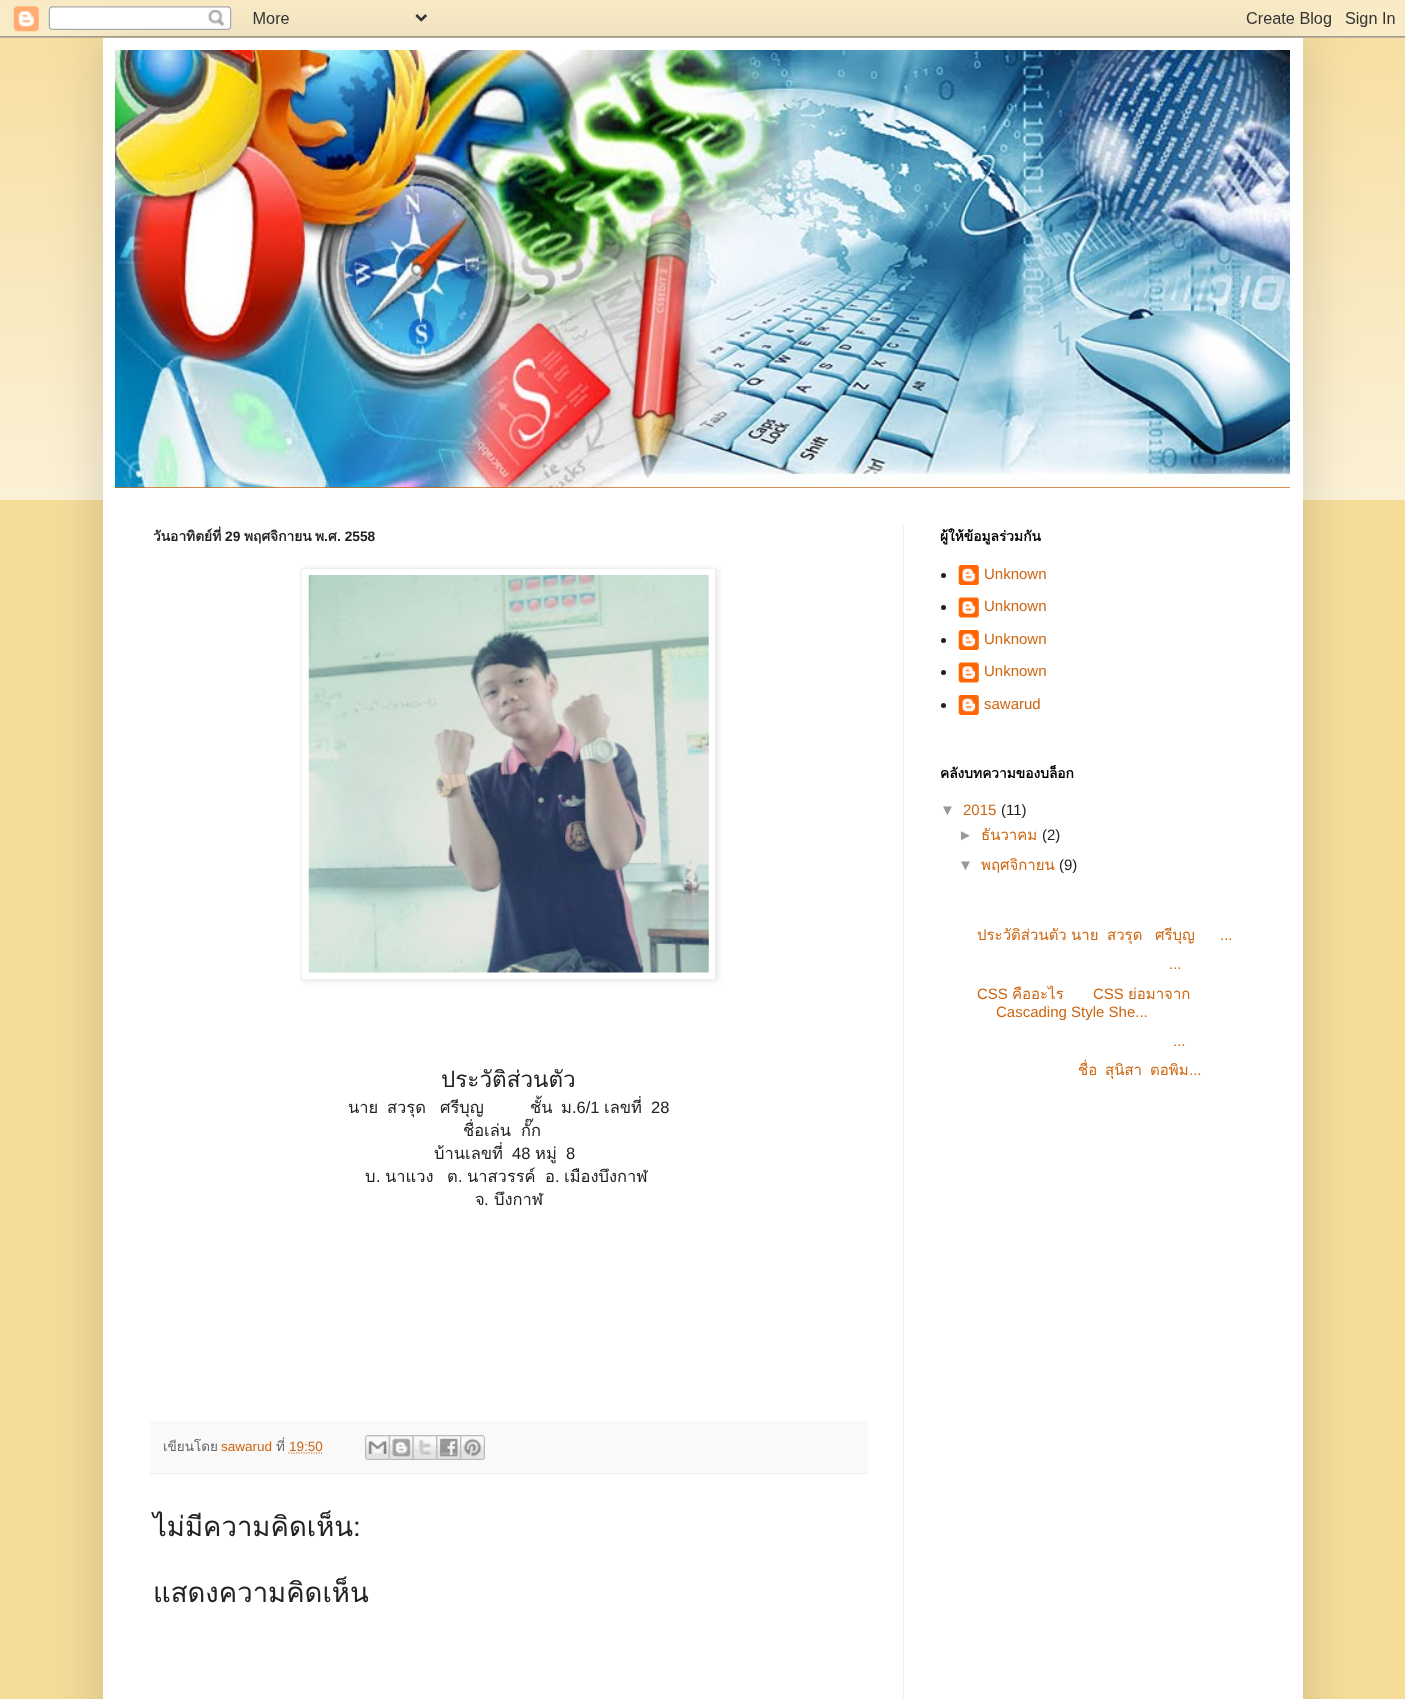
<svg xmlns="http://www.w3.org/2000/svg" width="1405" height="1699">
<rect width="100%" height="100%" fill="#f6dc99"/>
<image x="0" y="0" width="1405" height="500" href="media/1.png"/>
<rect x="103" y="38" width="1200" height="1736" fill="#00000026" filter="blur(25px)"/>
<image x="0" y="0" width="1405" height="38" href="media/2.png"/>
<rect x="103" y="38" width="1200" height="1661" fill="#fff"/>
<rect x="115" y="487" width="1175" height="1" fill="#c61"/>
<image x="115" y="50" width="1175" height="438" href="media/3.png"/>
<rect x="903" y="525" width="1" height="1174" fill="#eee"/>
<text x="153" y="541" style="font-family:Loma;font-size:13.75px;font-weight:bold;fill:#222">วันอาทิตย์ที่</text>
<text x="225" y="541" style="font-family:Liberation Sans;font-size:13.75px;font-weight:bold;fill:#222">29</text>
<text x="244" y="541" style="font-family:Loma;font-size:13.75px;font-weight:bold;fill:#222">พฤศจิกายน</text>
<text x="315" y="541" style="font-family:Loma;font-size:13.75px;font-weight:bold;fill:#222">พ</text>
<text x="324" y="541" style="font-family:Liberation Sans;font-size:13.75px;font-weight:bold;fill:#222">.</text>
<text x="328" y="541" style="font-family:Loma;font-size:13.75px;font-weight:bold;fill:#222">ศ</text>
<text x="337" y="541" style="font-family:Liberation Sans;font-size:13.75px;font-weight:bold;fill:#222">. 2558</text>
<rect x="303" y="569" width="415" height="412" fill="#0000001a" filter="blur(3px)"/>
<rect x="301.5" y="568.5" width="414" height="411" fill="#fff" stroke="#eee"/>
<image x="308" y="575" width="401" height="398" href="media/4.png"/>
<text x="441" y="1087" style="font-family:Loma;font-size:22.5px;fill:#222">ประวัติส่วนตัว</text>
<text x="348" y="1113" style="font-family:Loma;font-size:16.5px;fill:#222">นาย</text>
<text x="387" y="1113" style="font-family:Loma;font-size:16.5px;fill:#222">สวรุด</text>
<text x="440" y="1113" style="font-family:Loma;font-size:16.5px;fill:#222">ศรีบุญ</text>
<text x="530" y="1113" style="font-family:Loma;font-size:16.5px;fill:#222">ชั้น</text>
<text x="561" y="1113" style="font-family:Loma;font-size:16.5px;fill:#222">ม</text>
<text x="572" y="1113" style="font-family:Liberation Sans;font-size:16.5px;fill:#222">.6/1</text>
<text x="604" y="1113" style="font-family:Loma;font-size:16.5px;fill:#222">เลขที่</text>
<text x="651" y="1113" style="font-family:Liberation Sans;font-size:16.5px;fill:#222">28</text>
<text x="463" y="1136" style="font-family:Loma;font-size:16.5px;fill:#222">ชื่อเล่น</text>
<text x="521" y="1136" style="font-family:Loma;font-size:16.5px;fill:#222">กั๊ก</text>
<text x="434" y="1159" style="font-family:Loma;font-size:16.5px;fill:#222">บ้านเลขที่</text>
<text x="512" y="1159" style="font-family:Liberation Sans;font-size:16.5px;fill:#222">48</text>
<text x="535" y="1159" style="font-family:Loma;font-size:16.5px;fill:#222">หมู่</text>
<text x="566" y="1159" style="font-family:Liberation Sans;font-size:16.5px;fill:#222">8</text>
<text x="365" y="1182" style="font-family:Loma;font-size:16.5px;fill:#222">บ</text>
<text x="376" y="1182" style="font-family:Liberation Sans;font-size:16.5px;fill:#222">.</text>
<text x="385" y="1182" style="font-family:Loma;font-size:16.5px;fill:#222">นาแวง</text>
<text x="447" y="1182" style="font-family:Loma;font-size:16.5px;fill:#222">ต</text>
<text x="458" y="1182" style="font-family:Liberation Sans;font-size:16.5px;fill:#222">.</text>
<text x="467" y="1182" style="font-family:Loma;font-size:16.5px;fill:#222">นาสวรรค์</text>
<text x="545" y="1182" style="font-family:Loma;font-size:16.5px;fill:#222">อ</text>
<text x="555" y="1182" style="font-family:Liberation Sans;font-size:16.5px;fill:#222">.</text>
<text x="564" y="1182" style="font-family:Loma;font-size:16.5px;fill:#222">เมืองบึงกาฬ</text>
<text x="475" y="1205" style="font-family:Loma;font-size:16.5px;fill:#222">จ</text>
<text x="484" y="1205" style="font-family:Liberation Sans;font-size:16.5px;fill:#222">.</text>
<text x="494" y="1205" style="font-family:Loma;font-size:16.5px;fill:#222">บึงกาฬ</text>
<rect x="150" y="1421" width="718" height="52" fill="#f9f9f9"/>
<rect x="150" y="1473" width="718" height="1" fill="#eee"/>
<text x="163" y="1451" style="font-family:Loma;font-size:13.5px;fill:#666">เขียนโดย</text>
<text x="221" y="1451" style="font-family:Liberation Sans;font-size:13.5px;fill:#c61">sawarud</text>
<text x="276" y="1451" style="font-family:Loma;font-size:13.5px;fill:#666">ที่</text>
<text x="289" y="1451" style="font-family:Liberation Sans;font-size:13.5px;fill:#c61">19:50</text>
<path d="M288.5 1453h34" fill="none" stroke="#c61" stroke-width="1.2" stroke-dasharray="1.25 1.25"/>
<image x="365" y="1435" width="24" height="25" href="media/5.png"/>
<image x="388" y="1435" width="25" height="25" href="media/6.png"/>
<image x="412" y="1435" width="25" height="25" href="media/7.png"/>
<image x="436" y="1435" width="24" height="25" href="media/8.png"/>
<image x="460" y="1435" width="25" height="25" href="media/9.png"/>
<text x="153" y="1536" style="font-family:Loma;font-size:27.5px;fill:#222">ไม่มีความคิดเห็น:</text>
<text x="153" y="1602" style="font-family:Loma;font-size:27.5px;fill:#222">แสดงความคิดเห็น</text>
<text x="940" y="541" style="font-family:Loma;font-size:13.75px;font-weight:bold;fill:#000">ผู้ให้ข้อมูลร่วมกัน</text>
<circle cx="943.5" cy="575.5" r="2.5" fill="#222"/>
<image x="958" y="565" width="21" height="20" href="media/10.png"/>
<text x="984" y="579" style="font-family:Liberation Sans;font-size:15px;fill:#c61">Unknown</text>
<circle cx="943.5" cy="607.5" r="2.5" fill="#222"/>
<image x="958" y="597" width="21" height="21" href="media/11.png"/>
<text x="984" y="611" style="font-family:Liberation Sans;font-size:15px;fill:#c61">Unknown</text>
<circle cx="943.5" cy="640.5" r="2.5" fill="#222"/>
<image x="958" y="630" width="21" height="20" href="media/10.png"/>
<text x="984" y="644" style="font-family:Liberation Sans;font-size:15px;fill:#c61">Unknown</text>
<circle cx="943.5" cy="672.5" r="2.5" fill="#222"/>
<image x="958" y="662" width="21" height="21" href="media/11.png"/>
<text x="984" y="676" style="font-family:Liberation Sans;font-size:15px;fill:#c61">Unknown</text>
<circle cx="943.5" cy="705.5" r="2.5" fill="#222"/>
<image x="958" y="695" width="21" height="20" href="media/10.png"/>
<text x="984" y="709" style="font-family:Liberation Sans;font-size:15px;fill:#c61">sawarud</text>
<text x="940" y="778" style="font-family:Loma;font-size:13.75px;font-weight:bold;fill:#000">คลังบทความของบล็อก</text>
<text x="940" y="815" style="font-family:Liberation Sans;font-size:15px;fill:#999">▼</text>
<text x="963" y="815" style="font-family:Liberation Sans;font-size:15px;fill:#c61">2015</text>
<text x="1001" y="815" style="font-family:Liberation Sans;font-size:15px;fill:#222">(11)</text>
<text x="958" y="840" style="font-family:Liberation Sans;font-size:15px;fill:#999">►</text>
<text x="981" y="840" style="font-family:Loma;font-size:15px;fill:#c61">ธันวาคม</text>
<text x="1042" y="840" style="font-family:Liberation Sans;font-size:15px;fill:#222">(2)</text>
<text x="958" y="870" style="font-family:Liberation Sans;font-size:15px;fill:#999">▼</text>
<text x="981" y="870" style="font-family:Loma;font-size:15px;fill:#c61">พฤศจิกายน</text>
<text x="1059" y="870" style="font-family:Liberation Sans;font-size:15px;fill:#222">(9)</text>
<text x="977" y="940" style="font-family:Loma;font-size:15px;fill:#c61">ประวัติส่วนตัว</text>
<text x="1071" y="940" style="font-family:Loma;font-size:15px;fill:#c61">นาย</text>
<text x="1107" y="940" style="font-family:Loma;font-size:15px;fill:#c61">สวรุด</text>
<text x="1155" y="940" style="font-family:Loma;font-size:15px;fill:#c61">ศรีบุญ</text>
<text x="1220" y="940" style="font-family:Liberation Sans;font-size:15px;fill:#c61">...</text>
<text x="1169" y="969" style="font-family:Liberation Sans;font-size:15px;fill:#c61">...</text>
<text x="977" y="999" style="font-family:Liberation Sans;font-size:15px;fill:#c61">CSS</text>
<text x="1012" y="999" style="font-family:Loma;font-size:15px;fill:#c61">คืออะไร</text>
<text x="1093" y="999" style="font-family:Liberation Sans;font-size:15px;fill:#c61">CSS</text>
<text x="1128" y="999" style="font-family:Loma;font-size:15px;fill:#c61">ย่อมาจาก</text>
<text x="996" y="1017" style="font-family:Liberation Sans;font-size:15px;fill:#c61">Cascading Style She...</text>
<text x="1173" y="1046" style="font-family:Liberation Sans;font-size:15px;fill:#c61">...</text>
<text x="1078" y="1075" style="font-family:Loma;font-size:15px;fill:#c61">ชื่อ</text>
<text x="1105" y="1075" style="font-family:Loma;font-size:15px;fill:#c61">สุนิสา</text>
<text x="1150" y="1075" style="font-family:Loma;font-size:15px;fill:#c61">ตอพิม</text>
<text x="1189" y="1075" style="font-family:Liberation Sans;font-size:15px;fill:#c61">...</text>
</svg>
